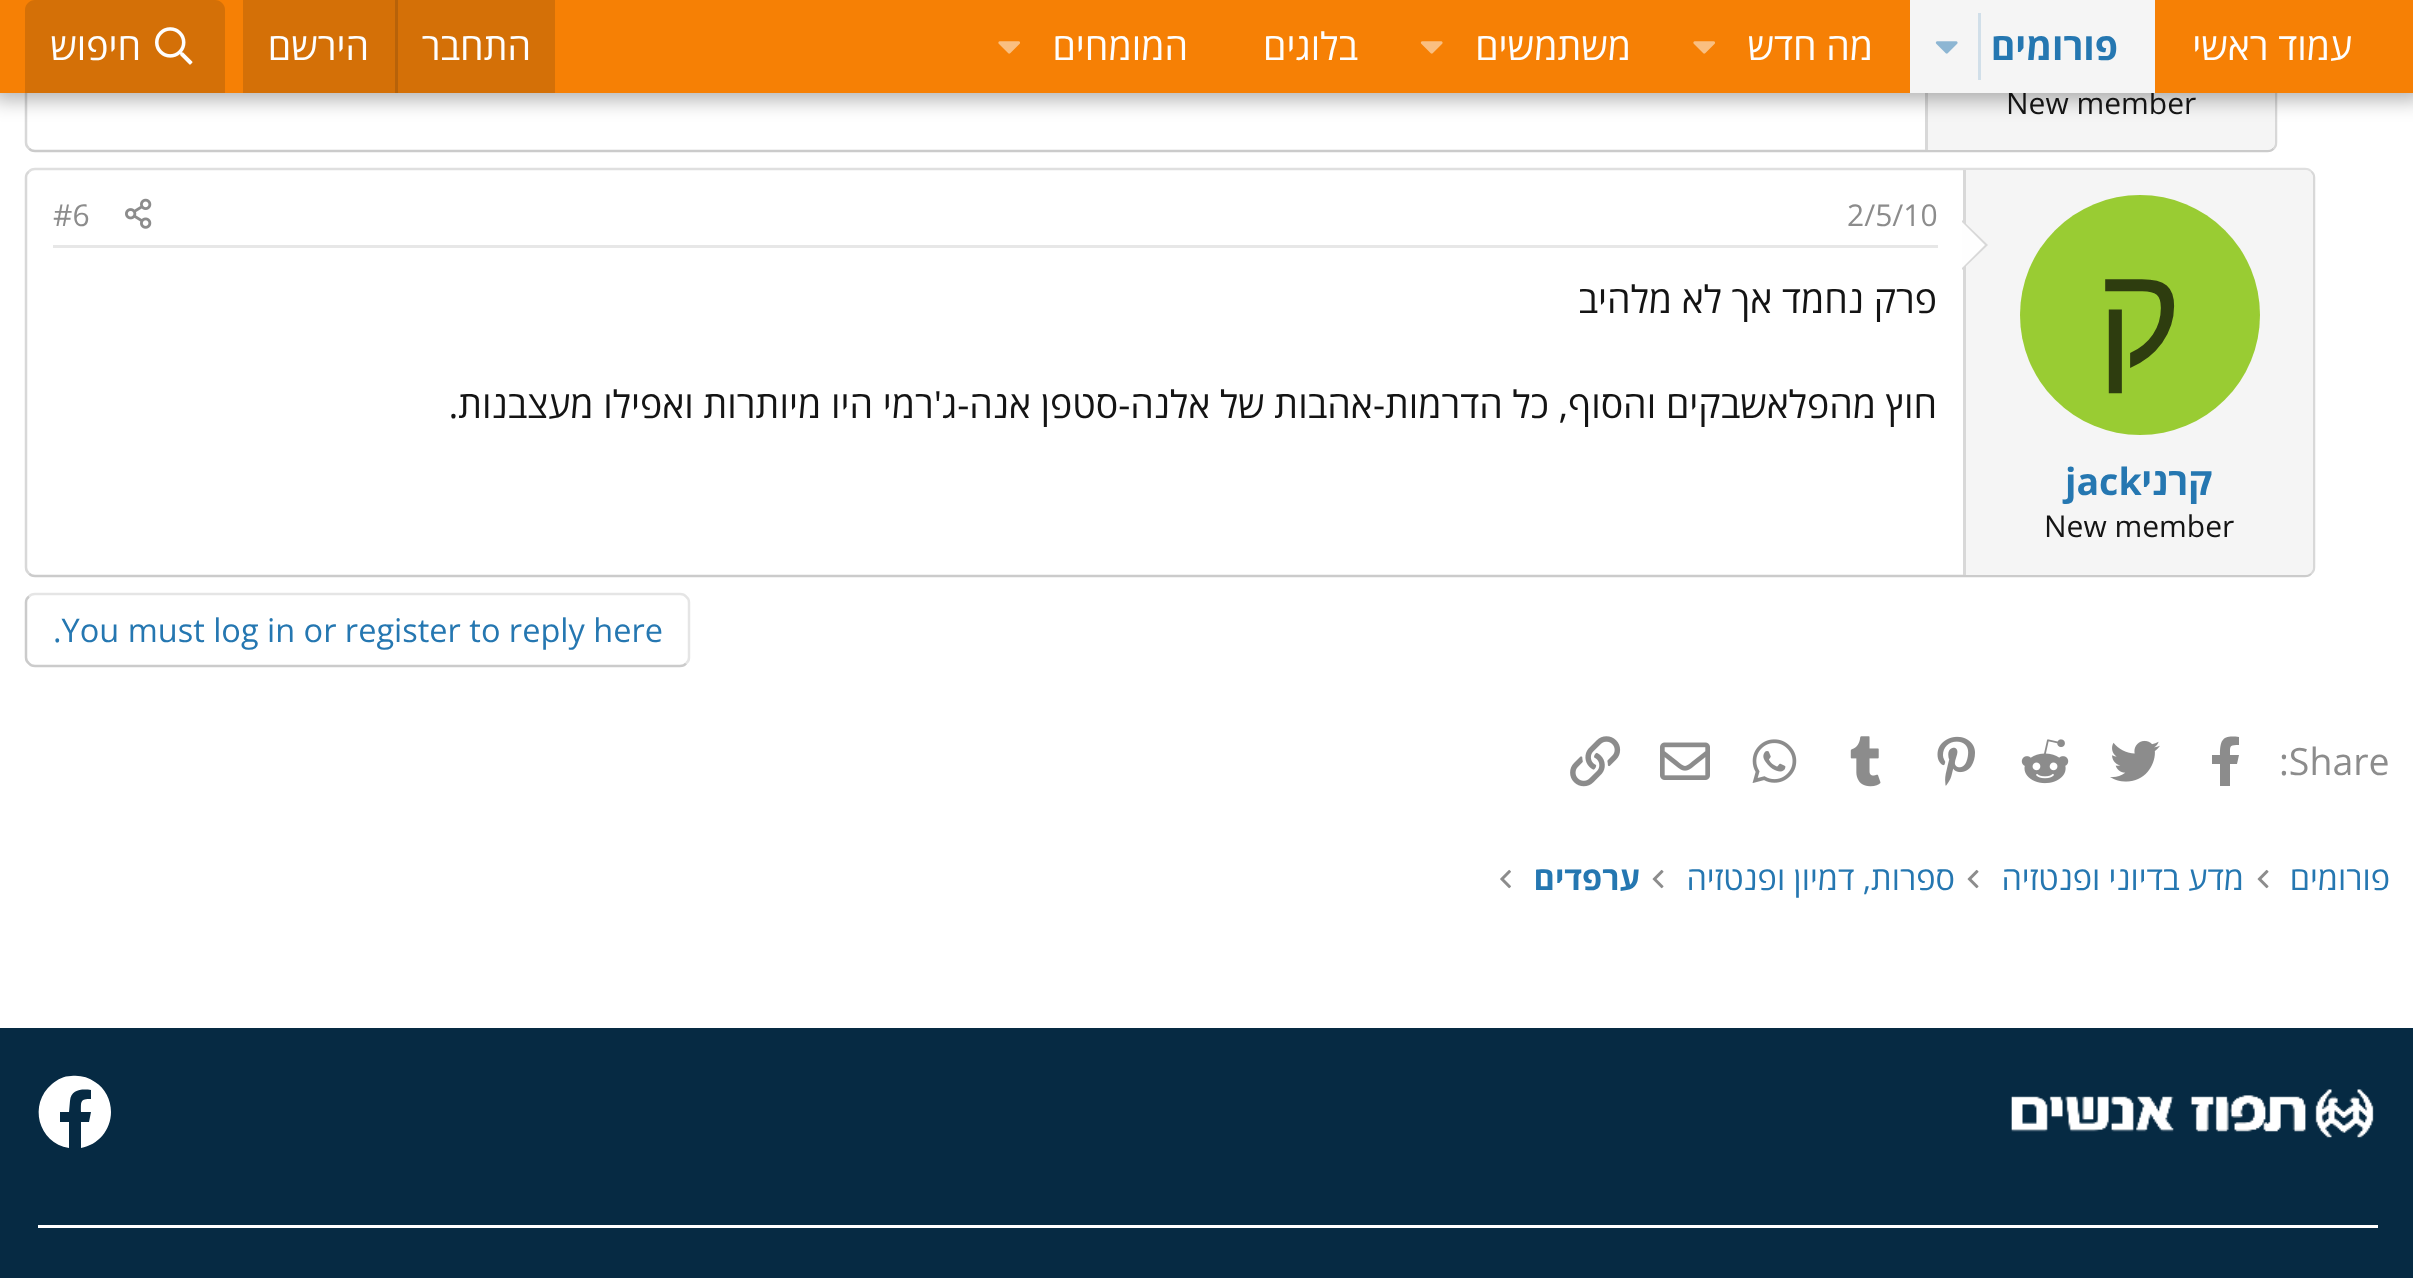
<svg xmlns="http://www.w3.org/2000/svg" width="2413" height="1278">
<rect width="100%" height="100%" fill="#fff"/>
<path d="M2273.5-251c2 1.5 2.5 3.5 2.5 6v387.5c0 2.5-.5 4.5-2.5 6" fill="none" stroke="#d8d8d8" stroke-width="2.5"/>
<path d="M2273.5 148.5c-1.5 2-3.5 2.5-6 2.5h-2232.5c-2.5 0-4.5-.5-6-2.5" fill="none" stroke="#cbcbcb" stroke-width="2.5"/>
<path d="M29 148.5c-2-1.5-3-3.5-3-6v-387.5c0-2.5 1-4.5 3-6" fill="none" stroke="#d8d8d8" stroke-width="2.5"/>
<path d="M1925-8h342c4.5 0 8 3.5 8 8v142c0 4.5-3.5 8-8 8h-342z" fill="#f5f5f5"/>
<rect x="1925" y="93" width="3" height="57" fill="#d8d8d8"/>
<rect x="-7" y="-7" width="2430" height="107" fill="#0000004d" filter="blur(10px)"/>
<text x="2006" y="114" style="font-family:Open Sans;font-size:30px;fill:#141414">New member</text>
<rect width="2413" height="93" fill="#f68005"/>
<text x="2352" y="60" style="font-family:Open Sans;font-size:37.5px;direction:rtl;fill:#fefefe">עמוד ראשי</text>
<rect x="1910" width="245" height="93" fill="#f5f5f5"/>
<text x="2118" y="60" style="font-family:Open Sans;font-size:37.5px;font-weight:bold;direction:rtl;fill:#2577b1">פורומים</text>
<rect x="1978" y="13" width="3" height="67" fill="#d1dfe9"/>
<image x="1935" y="41" width="23" height="13" href="media/1.png"/>
<text x="1873" y="60" style="font-family:Open Sans;font-size:37.5px;direction:rtl;fill:#fefefe">מה חדש</text>
<image x="1693" y="41" width="22" height="13" href="media/2.png"/>
<text x="1631" y="60" style="font-family:Open Sans;font-size:37.5px;direction:rtl;fill:#fefefe">משתמשים</text>
<image x="1420" y="41" width="23" height="13" href="media/3.png"/>
<text x="1358" y="60" style="font-family:Open Sans;font-size:37.5px;direction:rtl;fill:#fefefe">בלוגים</text>
<text x="1188" y="60" style="font-family:Open Sans;font-size:37.5px;direction:rtl;fill:#fefefe">המומחים</text>
<image x="998" y="41" width="22" height="13" href="media/2.png"/>
<rect x="243" width="312" height="93" fill="#d47007"/>
<text x="531" y="60" style="font-family:Open Sans;font-size:37.5px;direction:rtl;fill:#fefefe">התחבר</text>
<rect x="395" width="3" height="93" fill="#b76209"/>
<text x="369" y="60" style="font-family:Open Sans;font-size:37.5px;direction:rtl;fill:#fefefe">הירשם</text>
<path d="M35 0h180c5.5 0 10 4.5 10 10v83h-200v-83c0-5.5 4.5-10 10-10z" fill="#d47007"/>
<image x="155" y="27" width="38" height="38" href="media/4.png"/>
<text x="141" y="60" style="font-family:Open Sans;font-size:37.5px;direction:rtl;fill:#fefefe">חיפוש</text>
<path d="M29 171.5c1.5-2 3.5-2.5 6-2.5h2270c2.5 0 4.5 .5 6 2.5" fill="none" stroke="#dfdfdf" stroke-width="2.5"/>
<path d="M2311 171.5c2 1.5 3 3.5 3 6v390c0 2.5-1 4.5-3 6" fill="none" stroke="#d8d8d8" stroke-width="2.5"/>
<path d="M2311 573.5c-1.5 2-3.5 2.5-6 2.5h-2270c-2.5 0-4.5-.5-6-2.5" fill="none" stroke="#cbcbcb" stroke-width="2.5"/>
<path d="M29 573.5c-2-1.5-3-3.5-3-6v-390c0-2.5 1-4.5 3-6" fill="none" stroke="#d8d8d8" stroke-width="2.5"/>
<path d="M1963 170h342c4.5 0 8 3.5 8 8v389c0 4.5-3.5 8-8 8h-342z" fill="#f5f5f5"/>
<rect x="1963" y="170" width="3" height="405" fill="#d8d8d8"/>
<path d="M1962 270v-50l26 25z" fill="#d8d8d8"/>
<path d="M1962 268v-46l23 23z" fill="#fefefe"/>
<circle cx="2140" cy="315" r="120" fill="#9c3"/>
<text x="2182" y="366" style="font-family:Liberation Sans;font-size:145px;direction:rtl;fill:#2e3d0f">ק</text>
<text x="2212" y="495" style="font-family:Open Sans;font-size:37.5px;font-weight:bold;direction:rtl;fill:#2577b1">קרני</text>
<text x="2065" y="495" style="font-family:Open Sans;font-size:37.5px;font-weight:bold;fill:#2577b1">jack</text>
<text x="2044" y="537" style="font-family:Open Sans;font-size:30px;fill:#141414">New member</text>
<rect x="53" y="245" width="1885" height="3" fill="#e7e7e7"/>
<text x="1847" y="226" style="font-family:Open Sans;font-size:30px;fill:#8c8c8c">2/5/10</text>
<image x="125" y="198" width="27" height="31" href="media/5.png"/>
<text x="53" y="226" style="font-family:Open Sans;font-size:30px;fill:#8c8c8c">#6</text>
<text x="1937" y="313" style="font-family:Open Sans;font-size:37.5px;direction:rtl;fill:#141414">פרק נחמד אך לא מלהיב</text>
<text x="1937" y="418" style="font-family:Open Sans;font-size:37.5px;direction:rtl;fill:#141414">חוץ מהפלאשבקים והסוף, כל הדרמות-אהבות של אלנה-סטפן אנה-ג'רמי היו מיותרות ואפילו מעצבנות.</text>
<path d="M29 596.5c1.5-2 3.5-2.5 6-2.5h645c2.5 0 4.5 .5 6 2.5c2 1.5 3 3.5 3 6v55c0 2.5-1 4.5-3 6" fill="none" stroke="#e5e5e5" stroke-width="2.5"/>
<path d="M686 663.5c-1.5 2-3.5 2.5-6 2.5h-645c-2.5 0-4.5-.5-6-2.5c-2-1.5-3-3.5-3-6v-55c0-2.5 1-4.5 3-6" fill="none" stroke="#cbcbcb" stroke-width="2.5"/>
<text x="53" y="642" style="font-family:Open Sans;font-size:32.5px;fill:#2577b1">.You must log in or register to reply here</text>
<text x="2279" y="775" style="font-family:Open Sans;font-size:37.5px;fill:#8c8c8c">:Share</text>
<path d="M2237 764h-7v22h-10v-22h-8v-9h8c0-16 3-20 19-18v8c-10 0-9 1-9 10h9z" fill="#8c8c8c"/>
<image x="2110" y="740" width="50" height="42" href="media/6.png"/>
<image x="2021" y="739" width="48" height="45" href="media/7.png"/>
<image x="1937" y="736" width="38" height="50" href="media/8.png"/>
<image x="1850" y="736" width="31" height="51" href="media/9.png"/>
<image x="1752" y="739" width="45" height="44" href="media/10.png"/>
<image x="1660" y="742" width="50" height="38" href="media/11.png"/>
<image x="1570" y="736" width="51" height="51" href="media/12.png"/>
<text x="2390" y="890" style="font-family:Open Sans;font-size:32.5px;direction:rtl;fill:#2577b1">פורומים</text>
<image x="2257" y="869" width="12" height="20" href="media/13.png"/>
<text x="2244" y="890" style="font-family:Open Sans;font-size:32.5px;direction:rtl;fill:#2577b1">מדע בדיוני ופנטזיה</text>
<image x="1967" y="869" width="12" height="20" href="media/13.png"/>
<text x="1955" y="890" style="font-family:Open Sans;font-size:32.5px;direction:rtl;fill:#2577b1">ספרות, דמיון ופנטזיה</text>
<image x="1652" y="869" width="12" height="20" href="media/13.png"/>
<text x="1640" y="890" style="font-family:Open Sans;font-size:32.5px;font-weight:bold;direction:rtl;fill:#2577b1">ערפדים</text>
<image x="1500" y="869" width="11" height="20" href="media/14.png"/>
<rect y="1028" width="2413" height="250" fill="#062a43"/>
<rect x="38" y="1225" width="2340" height="3" fill="#fff"/>
<image x="2011" y="1089" width="363" height="49" href="media/15.png"/>
<path d="M111 1112c0 18-13 33-30 36v-26h8l2-10h-10c0-11-1-13 10-13v-9c-9-1-20-1-21 11l-1 11h-9v10h9v26c-31-5-41-44-17-64c6-5 12-8 19-8c9-1 17 1 24 6c10 6 16 18 16 30z" fill="#fff"/>
</svg>
